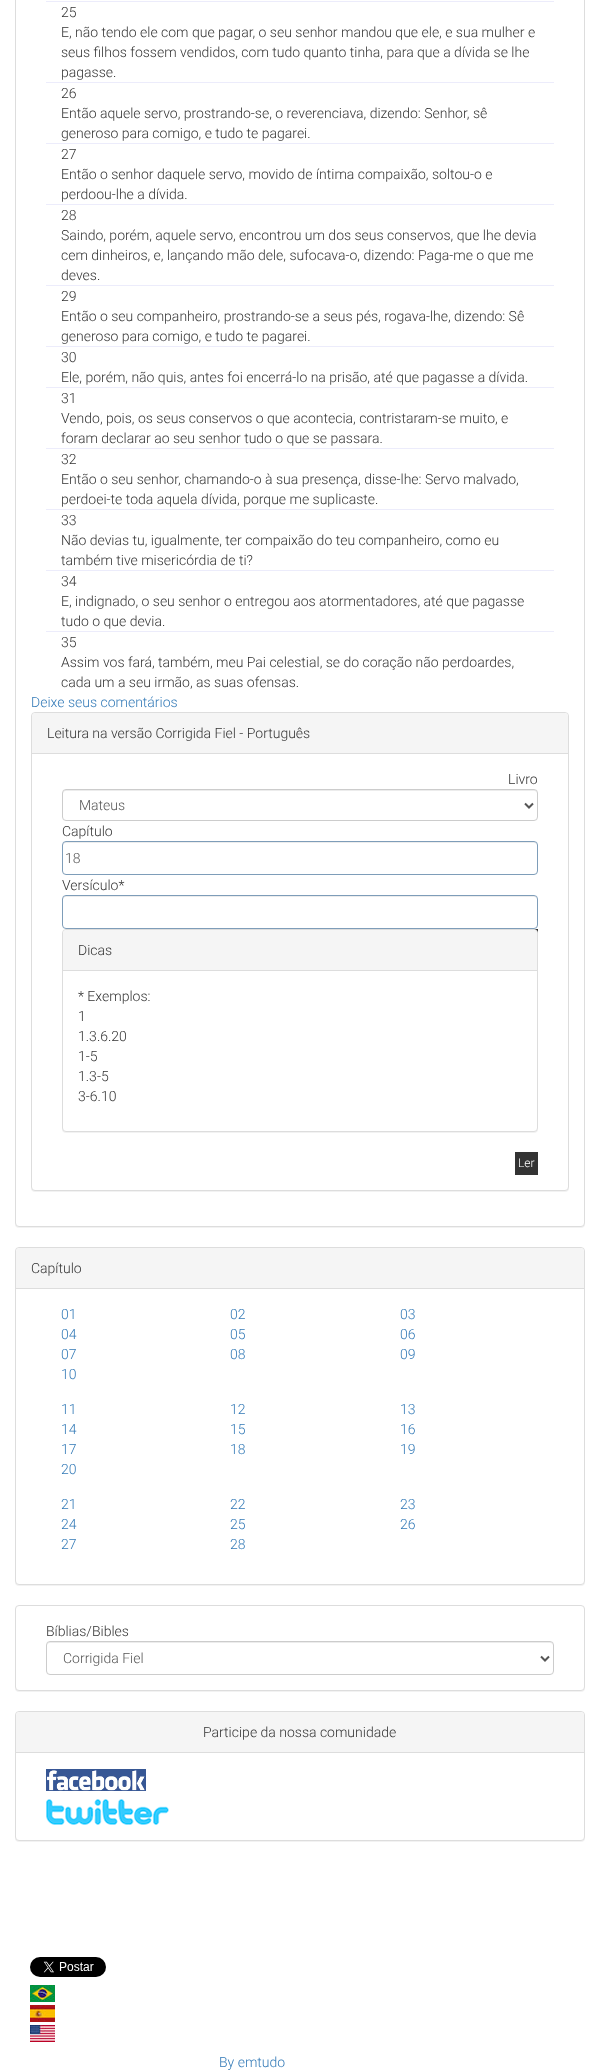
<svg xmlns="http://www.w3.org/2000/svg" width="600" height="2072">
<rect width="100%" height="100%" fill="#fff"/>
<rect x="15" y="-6" width="570" height="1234" rx="4" fill="#0000000d" filter="blur(0.5px)"/>
<rect x="15.5" y="-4.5" width="569" height="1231" rx="3.5" fill="#fff" stroke="#ddd"/>
<rect x="46" y="1" width="508" height="1" fill="#ececfb"/>
<text x="61" y="17" style="font-family:Roboto;font-size:14px;font-weight:300;fill:#333">25</text>
<text x="61" y="37" style="font-family:Roboto;font-size:14px;font-weight:300;fill:#333">E, não tendo ele com que pagar, o seu senhor mandou que ele, e sua mulher e</text>
<text x="61" y="57" style="font-family:Roboto;font-size:14px;font-weight:300;fill:#333">seus filhos fossem vendidos, com tudo quanto tinha, para que a dívida se lhe</text>
<text x="61" y="77" style="font-family:Roboto;font-size:14px;font-weight:300;fill:#333">pagasse.</text>
<rect x="46" y="82" width="508" height="1" fill="#ececfb"/>
<text x="61" y="98" style="font-family:Roboto;font-size:14px;font-weight:300;fill:#333">26</text>
<text x="61" y="118" style="font-family:Roboto;font-size:14px;font-weight:300;fill:#333">Então aquele servo, prostrando-se, o reverenciava, dizendo: Senhor, sê</text>
<text x="61" y="138" style="font-family:Roboto;font-size:14px;font-weight:300;fill:#333">generoso para comigo, e tudo te pagarei.</text>
<rect x="46" y="143" width="508" height="1" fill="#ececfb"/>
<text x="61" y="159" style="font-family:Roboto;font-size:14px;font-weight:300;fill:#333">27</text>
<text x="61" y="179" style="font-family:Roboto;font-size:14px;font-weight:300;fill:#333">Então o senhor daquele servo, movido de íntima compaixão, soltou-o e</text>
<text x="61" y="199" style="font-family:Roboto;font-size:14px;font-weight:300;fill:#333">perdoou-lhe a dívida.</text>
<rect x="46" y="204" width="508" height="1" fill="#ececfb"/>
<text x="61" y="220" style="font-family:Roboto;font-size:14px;font-weight:300;fill:#333">28</text>
<text x="61" y="240" style="font-family:Roboto;font-size:14px;font-weight:300;fill:#333">Saindo, porém, aquele servo, encontrou um dos seus conservos, que lhe devia</text>
<text x="61" y="260" style="font-family:Roboto;font-size:14px;font-weight:300;fill:#333">cem dinheiros, e, lançando mão dele, sufocava-o, dizendo: Paga-me o que me</text>
<text x="61" y="280" style="font-family:Roboto;font-size:14px;font-weight:300;fill:#333">deves.</text>
<rect x="46" y="285" width="508" height="1" fill="#ececfb"/>
<text x="61" y="301" style="font-family:Roboto;font-size:14px;font-weight:300;fill:#333">29</text>
<text x="61" y="321" style="font-family:Roboto;font-size:14px;font-weight:300;fill:#333">Então o seu companheiro, prostrando-se a seus pés, rogava-lhe, dizendo: Sê</text>
<text x="61" y="341" style="font-family:Roboto;font-size:14px;font-weight:300;fill:#333">generoso para comigo, e tudo te pagarei.</text>
<rect x="46" y="346" width="508" height="1" fill="#ececfb"/>
<text x="61" y="362" style="font-family:Roboto;font-size:14px;font-weight:300;fill:#333">30</text>
<text x="61" y="382" style="font-family:Roboto;font-size:14px;font-weight:300;fill:#333">Ele, porém, não quis, antes foi encerrá-lo na prisão, até que pagasse a dívida.</text>
<rect x="46" y="387" width="508" height="1" fill="#ececfb"/>
<text x="61" y="403" style="font-family:Roboto;font-size:14px;font-weight:300;fill:#333">31</text>
<text x="61" y="423" style="font-family:Roboto;font-size:14px;font-weight:300;fill:#333">Vendo, pois, os seus conservos o que acontecia, contristaram-se muito, e</text>
<text x="61" y="443" style="font-family:Roboto;font-size:14px;font-weight:300;fill:#333">foram declarar ao seu senhor tudo o que se passara.</text>
<rect x="46" y="448" width="508" height="1" fill="#ececfb"/>
<text x="61" y="464" style="font-family:Roboto;font-size:14px;font-weight:300;fill:#333">32</text>
<text x="61" y="484" style="font-family:Roboto;font-size:14px;font-weight:300;fill:#333">Então o seu senhor, chamando-o à sua presença, disse-lhe: Servo malvado,</text>
<text x="61" y="504" style="font-family:Roboto;font-size:14px;font-weight:300;fill:#333">perdoei-te toda aquela dívida, porque me suplicaste.</text>
<rect x="46" y="509" width="508" height="1" fill="#ececfb"/>
<text x="61" y="525" style="font-family:Roboto;font-size:14px;font-weight:300;fill:#333">33</text>
<text x="61" y="545" style="font-family:Roboto;font-size:14px;font-weight:300;fill:#333">Não devias tu, igualmente, ter compaixão do teu companheiro, como eu</text>
<text x="61" y="565" style="font-family:Roboto;font-size:14px;font-weight:300;fill:#333">também tive misericórdia de ti?</text>
<rect x="46" y="570" width="508" height="1" fill="#ececfb"/>
<text x="61" y="586" style="font-family:Roboto;font-size:14px;font-weight:300;fill:#333">34</text>
<text x="61" y="606" style="font-family:Roboto;font-size:14px;font-weight:300;fill:#333">E, indignado, o seu senhor o entregou aos atormentadores, até que pagasse</text>
<text x="61" y="626" style="font-family:Roboto;font-size:14px;font-weight:300;fill:#333">tudo o que devia.</text>
<rect x="46" y="631" width="508" height="1" fill="#ececfb"/>
<text x="61" y="647" style="font-family:Roboto;font-size:14px;font-weight:300;fill:#333">35</text>
<text x="61" y="667" style="font-family:Roboto;font-size:14px;font-weight:300;fill:#333">Assim vos fará, também, meu Pai celestial, se do coração não perdoardes,</text>
<text x="61" y="687" style="font-family:Roboto;font-size:14px;font-weight:300;fill:#333">cada um a seu irmão, as suas ofensas.</text>
<text x="31" y="707" style="font-family:Roboto;font-size:14px;font-weight:300;fill:#337ab7">Deixe seus comentários</text>
<rect x="31" y="713" width="538" height="479" rx="4" fill="#0000000d" filter="blur(0.5px)"/>
<rect x="31.5" y="712.5" width="537" height="478" rx="3.5" fill="#fff" stroke="#ddd"/>
<path d="M35 713h530c1.5 0 3 1.5 3 3v38h-536v-38c0-1.5 1.5-3 3-3z" fill="#f5f5f5"/>
<rect x="32" y="753" width="536" height="1" fill="#ddd"/>
<text x="47" y="738" style="font-family:Roboto;font-size:14px;font-weight:300;fill:#333">Leitura na versão Corrigida Fiel - Português</text>
<text x="508" y="784" style="font-family:Roboto;font-size:14px;font-weight:300;fill:#333">Livro</text>
<path d="M66 791h468c2 0 3 1 3 3c0-2-1-4-3-4h-469l-2 2v2c0-2 1-3 3-3z" fill="#ececec"/>
<rect x="62.5" y="789.5" width="475" height="31" rx="3.5" fill="none" stroke="#ccc"/>
<path d="M525 803.5l4 4l4-4" fill="none" stroke="#555" stroke-width="2"/>
<text x="79" y="810" style="font-family:Roboto;font-size:14px;font-weight:300;fill:#555">Mateus</text>
<text x="62" y="836" style="font-family:Roboto;font-size:14px;font-weight:300;fill:#333">Capítulo</text>
<path d="M66 843h468c2 0 3 1 3 3c0-2-1-4-3-4h-469l-2 2v2c0-2 1-3 3-3z" fill="#ececec"/>
<rect x="62.5" y="841.5" width="475" height="33" rx="3.5" fill="none" stroke="#7e9db9"/>
<text x="65" y="863" style="font-family:Roboto;font-size:14px;font-weight:300;fill:#555">18</text>
<text x="62" y="890" style="font-family:Roboto;font-size:14px;font-weight:300;fill:#333">Versículo*</text>
<path d="M66 897h468c2 0 3 1 3 3c0-2-1-4-3-4h-469l-2 2v2c0-2 1-3 3-3z" fill="#ececec"/>
<rect x="62.5" y="895.5" width="475" height="33" rx="3.5" fill="none" stroke="#7e9db9"/>
<rect x="534" y="929" width="4" height="4" fill="#333"/>
<rect x="62" y="930" width="476" height="203" rx="4" fill="#0000000d" filter="blur(0.5px)"/>
<rect x="62.5" y="929.5" width="475" height="202" rx="3.5" fill="#fff" stroke="#ddd"/>
<path d="M66 930h468c1.5 0 3 1.5 3 3v38h-474v-38c0-1.5 1.5-3 3-3z" fill="#f5f5f5"/>
<rect x="63" y="970" width="474" height="1" fill="#ddd"/>
<text x="78" y="955" style="font-family:Roboto;font-size:14px;font-weight:300;fill:#333">Dicas</text>
<text x="78" y="1001" style="font-family:Roboto;font-size:14px;font-weight:300;fill:#333">* Exemplos:</text>
<text x="78" y="1021" style="font-family:Roboto;font-size:14px;font-weight:300;fill:#333">1</text>
<text x="78" y="1041" style="font-family:Roboto;font-size:14px;font-weight:300;fill:#333">1.3.6.20</text>
<text x="78" y="1061" style="font-family:Roboto;font-size:14px;font-weight:300;fill:#333">1-5</text>
<text x="78" y="1081" style="font-family:Roboto;font-size:14px;font-weight:300;fill:#333">1.3-5</text>
<text x="78" y="1101" style="font-family:Roboto;font-size:14px;font-weight:300;fill:#333">3-6.10</text>
<rect x="515" y="1152" width="23" height="23" fill="#333"/>
<text x="518" y="1167" style="font-family:Roboto;font-size:12px;font-weight:300;fill:#fff">Ler</text>
<rect x="15" y="1248" width="570" height="338" rx="4" fill="#0000000d" filter="blur(0.5px)"/>
<rect x="15.5" y="1247.5" width="569" height="337" rx="3.5" fill="#fff" stroke="#ddd"/>
<path d="M19 1248h562c1.5 0 3 1.5 3 3v38h-568v-38c0-1.5 1.5-3 3-3z" fill="#f5f5f5"/>
<rect x="16" y="1288" width="568" height="1" fill="#ddd"/>
<text x="31" y="1273" style="font-family:Roboto;font-size:14px;font-weight:300;fill:#333">Capítulo</text>
<text x="61" y="1319" style="font-family:Roboto;font-size:14px;font-weight:300;fill:#337ab7">01</text>
<text x="230" y="1319" style="font-family:Roboto;font-size:14px;font-weight:300;fill:#337ab7">02</text>
<text x="400" y="1319" style="font-family:Roboto;font-size:14px;font-weight:300;fill:#337ab7">03</text>
<text x="61" y="1339" style="font-family:Roboto;font-size:14px;font-weight:300;fill:#337ab7">04</text>
<text x="230" y="1339" style="font-family:Roboto;font-size:14px;font-weight:300;fill:#337ab7">05</text>
<text x="400" y="1339" style="font-family:Roboto;font-size:14px;font-weight:300;fill:#337ab7">06</text>
<text x="61" y="1359" style="font-family:Roboto;font-size:14px;font-weight:300;fill:#337ab7">07</text>
<text x="230" y="1359" style="font-family:Roboto;font-size:14px;font-weight:300;fill:#337ab7">08</text>
<text x="400" y="1359" style="font-family:Roboto;font-size:14px;font-weight:300;fill:#337ab7">09</text>
<text x="61" y="1379" style="font-family:Roboto;font-size:14px;font-weight:300;fill:#337ab7">10</text>
<text x="61" y="1414" style="font-family:Roboto;font-size:14px;font-weight:300;fill:#337ab7">11</text>
<text x="230" y="1414" style="font-family:Roboto;font-size:14px;font-weight:300;fill:#337ab7">12</text>
<text x="400" y="1414" style="font-family:Roboto;font-size:14px;font-weight:300;fill:#337ab7">13</text>
<text x="61" y="1434" style="font-family:Roboto;font-size:14px;font-weight:300;fill:#337ab7">14</text>
<text x="230" y="1434" style="font-family:Roboto;font-size:14px;font-weight:300;fill:#337ab7">15</text>
<text x="400" y="1434" style="font-family:Roboto;font-size:14px;font-weight:300;fill:#337ab7">16</text>
<text x="61" y="1454" style="font-family:Roboto;font-size:14px;font-weight:300;fill:#337ab7">17</text>
<text x="230" y="1454" style="font-family:Roboto;font-size:14px;font-weight:300;fill:#337ab7">18</text>
<text x="400" y="1454" style="font-family:Roboto;font-size:14px;font-weight:300;fill:#337ab7">19</text>
<text x="61" y="1474" style="font-family:Roboto;font-size:14px;font-weight:300;fill:#337ab7">20</text>
<text x="61" y="1509" style="font-family:Roboto;font-size:14px;font-weight:300;fill:#337ab7">21</text>
<text x="230" y="1509" style="font-family:Roboto;font-size:14px;font-weight:300;fill:#337ab7">22</text>
<text x="400" y="1509" style="font-family:Roboto;font-size:14px;font-weight:300;fill:#337ab7">23</text>
<text x="61" y="1529" style="font-family:Roboto;font-size:14px;font-weight:300;fill:#337ab7">24</text>
<text x="230" y="1529" style="font-family:Roboto;font-size:14px;font-weight:300;fill:#337ab7">25</text>
<text x="400" y="1529" style="font-family:Roboto;font-size:14px;font-weight:300;fill:#337ab7">26</text>
<text x="61" y="1549" style="font-family:Roboto;font-size:14px;font-weight:300;fill:#337ab7">27</text>
<text x="230" y="1549" style="font-family:Roboto;font-size:14px;font-weight:300;fill:#337ab7">28</text>
<rect x="15" y="1606" width="570" height="86" rx="4" fill="#0000000d" filter="blur(0.5px)"/>
<rect x="15.5" y="1605.5" width="569" height="85" rx="3.5" fill="#fff" stroke="#ddd"/>
<text x="46" y="1636" style="font-family:Roboto;font-size:14px;font-weight:300;fill:#333">Bíblias/Bibles</text>
<path d="M50 1643h500c2 0 3 1 3 3c0-2-1-4-3-4h-500c-2 0-3 2-3 4c0-2 1-3 3-3z" fill="#ececec"/>
<rect x="46.5" y="1641.5" width="507" height="33" rx="3.5" fill="none" stroke="#ccc"/>
<path d="M541 1656.5l4 4l4-4" fill="none" stroke="#555" stroke-width="2"/>
<text x="63" y="1663" style="font-family:Roboto;font-size:14px;font-weight:300;fill:#555">Corrigida Fiel</text>
<rect x="15" y="1712" width="570" height="130" rx="4" fill="#0000000d" filter="blur(0.5px)"/>
<rect x="15.5" y="1711.5" width="569" height="129" rx="3.5" fill="#fff" stroke="#ddd"/>
<path d="M19 1712h562c1.5 0 3 1.5 3 3v38h-568v-38c0-1.5 1.5-3 3-3z" fill="#f5f5f5"/>
<rect x="16" y="1752" width="568" height="1" fill="#ddd"/>
<text x="203" y="1737" style="font-family:Roboto;font-size:14px;font-weight:300;fill:#333">Participe da nossa comunidade</text>
<image x="46" y="1769" width="100" height="22" href="media/1.png"/>
<image x="46" y="1799" width="123" height="26" href="media/2.png"/>
<image x="30" y="1957" width="76" height="20" href="media/3.png"/>
<image x="30" y="1985" width="25" height="17" href="media/4.png"/>
<image x="30" y="2005" width="25" height="17" href="media/5.png"/>
<image x="30" y="2025" width="25" height="17" href="media/6.png"/>
<text x="219" y="2067" style="font-family:Roboto;font-size:14px;font-weight:300;fill:#337ab7">By emtudo</text>
</svg>
